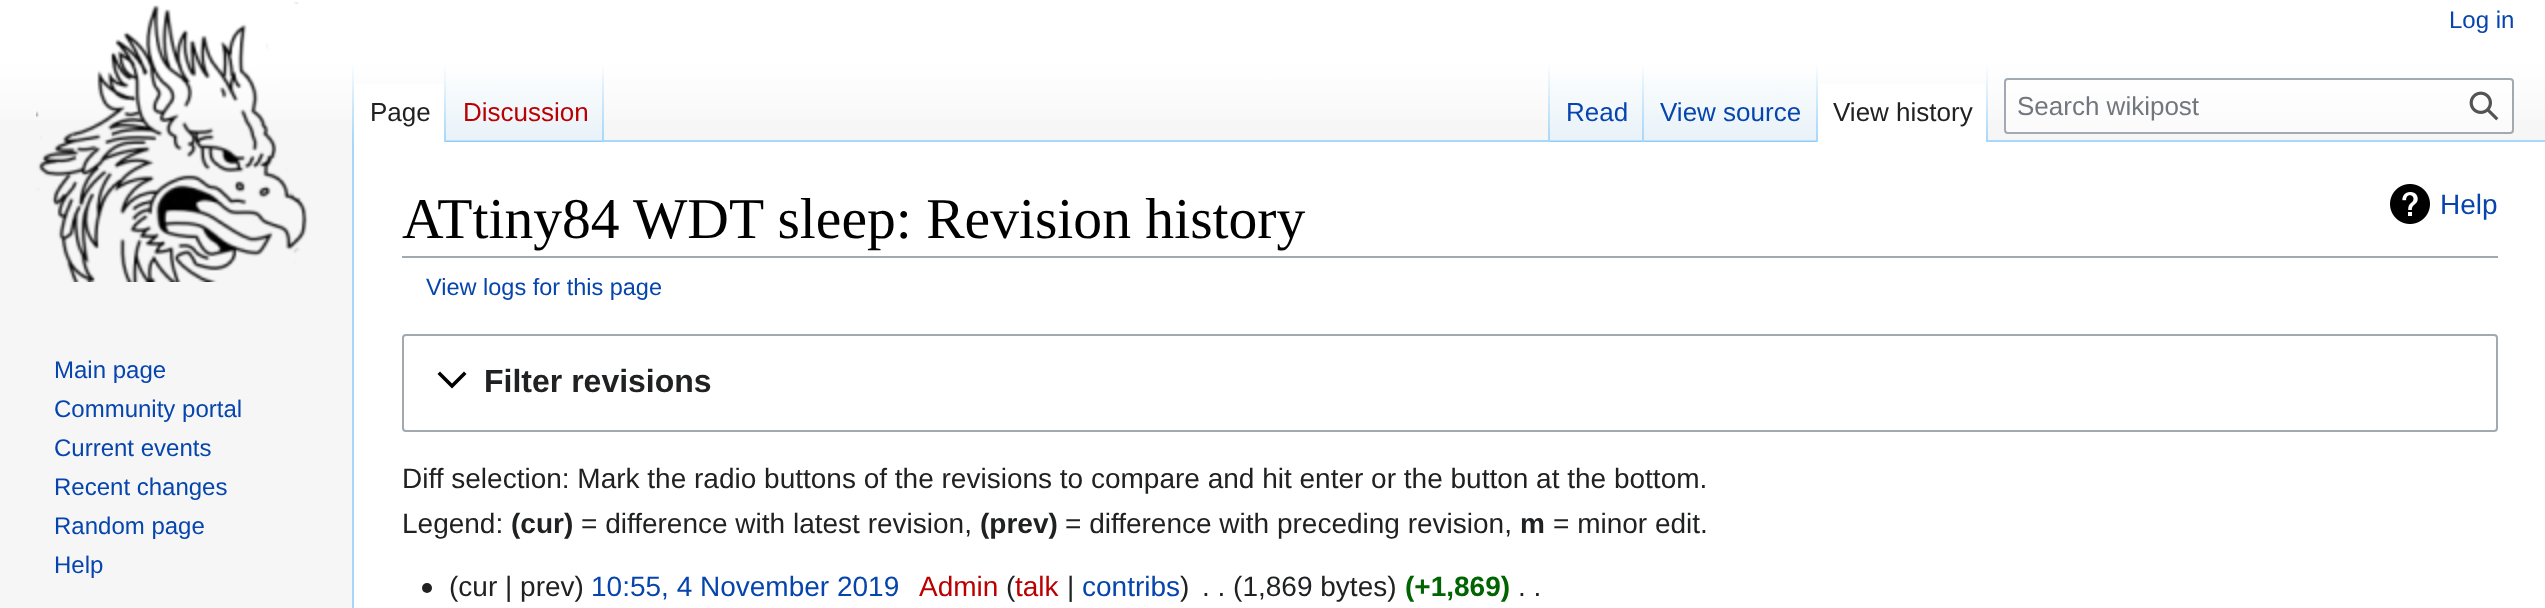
<svg xmlns="http://www.w3.org/2000/svg" width="2545" height="608">
<defs>
<linearGradient id="g1" gradientUnits="userSpaceOnUse" x1="1273" y1="-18" x2="1273" y2="142"><stop offset="0.5" stop-color="#fff"/><stop offset="1" stop-color="#f6f6f6"/></linearGradient>
<linearGradient id="g2" gradientUnits="userSpaceOnUse" x1="353" y1="62" x2="353" y2="142"><stop offset="0" stop-color="#a7d7f9" stop-opacity="0"/><stop offset="1" stop-color="#a7d7f9"/></linearGradient>
<linearGradient id="g3" gradientUnits="userSpaceOnUse" x1="445" y1="62" x2="445" y2="142"><stop offset="0" stop-color="#fff"/><stop offset="1" stop-color="#a7d7f9"/></linearGradient>
<linearGradient id="g4" gradientUnits="userSpaceOnUse" x1="525" y1="142" x2="525" y2="62"><stop offset="0" stop-color="#77c1f6"/><stop offset="0.03" stop-color="#e8f2f8"/><stop offset="1" stop-color="#fff"/></linearGradient>
<linearGradient id="g5" gradientUnits="userSpaceOnUse" x1="603" y1="62" x2="603" y2="142"><stop offset="0" stop-color="#a7d7f9" stop-opacity="0"/><stop offset="1" stop-color="#a7d7f9"/></linearGradient>
<linearGradient id="g6" gradientUnits="userSpaceOnUse" x1="1549" y1="62" x2="1549" y2="142"><stop offset="0" stop-color="#a7d7f9" stop-opacity="0"/><stop offset="1" stop-color="#a7d7f9"/></linearGradient>
<linearGradient id="g7" gradientUnits="userSpaceOnUse" x1="1597" y1="142" x2="1597" y2="62"><stop offset="0" stop-color="#77c1f6"/><stop offset="0.03" stop-color="#e8f2f8"/><stop offset="1" stop-color="#fff"/></linearGradient>
<linearGradient id="g8" gradientUnits="userSpaceOnUse" x1="1643" y1="62" x2="1643" y2="142"><stop offset="0" stop-color="#a7d7f9" stop-opacity="0"/><stop offset="1" stop-color="#a7d7f9"/></linearGradient>
<linearGradient id="g9" gradientUnits="userSpaceOnUse" x1="1731" y1="142" x2="1731" y2="62"><stop offset="0" stop-color="#77c1f6"/><stop offset="0.03" stop-color="#e8f2f8"/><stop offset="1" stop-color="#fff"/></linearGradient>
<linearGradient id="g10" gradientUnits="userSpaceOnUse" x1="1817" y1="62" x2="1817" y2="142"><stop offset="0" stop-color="#a7d7f9" stop-opacity="0"/><stop offset="1" stop-color="#a7d7f9"/></linearGradient>
<linearGradient id="g11" gradientUnits="userSpaceOnUse" x1="1987" y1="62" x2="1987" y2="142"><stop offset="0" stop-color="#fff"/><stop offset="1" stop-color="#a7d7f9"/></linearGradient>
</defs>
<rect width="100%" height="100%" fill="#f6f6f6"/>
<rect width="2545" height="120" fill="url(#g1)"/>
<text x="2449" y="28" style="font-family:Liberation Sans;font-size:24px;fill:#0645ad">Log in</text>
<rect x="352" y="140" width="2" height="468" fill="#a7d7f9"/>
<rect x="352" y="62" width="2" height="80" fill="url(#g2)"/>
<rect x="354" y="84" width="90" height="58" fill="#fff"/>
<rect x="444" y="62" width="2" height="80" fill="url(#g3)"/>
<text x="370" y="121" style="font-family:Liberation Sans;font-size:26px;fill:#202122">Page</text>
<rect x="446" y="74" width="158" height="68" fill="url(#g4)"/>
<rect x="602" y="62" width="2" height="80" fill="url(#g5)"/>
<text x="463" y="121" style="font-family:Liberation Sans;font-size:26px;fill:#ba0000">Discussion</text>
<rect x="604" y="140" width="1941" height="2" fill="#a7d7f9"/>
<rect x="1548" y="62" width="2" height="80" fill="url(#g6)"/>
<rect x="1550" y="74" width="94" height="68" fill="url(#g7)"/>
<rect x="1642" y="62" width="2" height="80" fill="url(#g8)"/>
<text x="1566" y="121" style="font-family:Liberation Sans;font-size:26px;fill:#0645ad">Read</text>
<rect x="1644" y="74" width="174" height="68" fill="url(#g9)"/>
<rect x="1816" y="62" width="2" height="80" fill="url(#g10)"/>
<text x="1660" y="121" style="font-family:Liberation Sans;font-size:26px;fill:#0645ad">View source</text>
<rect x="1818" y="84" width="168" height="58" fill="#fff"/>
<rect x="1986" y="62" width="2" height="80" fill="url(#g11)"/>
<text x="1833" y="121" style="font-family:Liberation Sans;font-size:26px;fill:#202122">View history</text>
<rect x="2005" y="79" width="508" height="54" rx="3" fill="#ffffff80" stroke="#a2a9b1" stroke-width="2"/>
<text x="2017" y="115" style="font-family:Liberation Sans;font-size:26px;fill:#72777d">Search wikipost</text>
<image x="2469" y="91" width="30" height="30" href="media/1.png"/>
<image x="36" y="2" width="272" height="280" href="media/2.png"/>
<text x="54" y="378" style="font-family:Liberation Sans;font-size:24px;fill:#0645ad">Main page</text>
<text x="54" y="417" style="font-family:Liberation Sans;font-size:24px;fill:#0645ad">Community portal</text>
<text x="54" y="456" style="font-family:Liberation Sans;font-size:24px;fill:#0645ad">Current events</text>
<text x="54" y="495" style="font-family:Liberation Sans;font-size:24px;fill:#0645ad">Recent changes</text>
<text x="54" y="534" style="font-family:Liberation Sans;font-size:24px;fill:#0645ad">Random page</text>
<text x="54" y="573" style="font-family:Liberation Sans;font-size:24px;fill:#0645ad">Help</text>
<rect x="354" y="142" width="2191" height="466" fill="#fff"/>
<rect x="402" y="256" width="2096" height="2" fill="#a2a9b1"/>
<text x="402" y="238" style="font-family:Liberation Serif;font-size:57.6px;fill:#000">ATtiny84 WDT sleep: Revision history</text>
<image x="2390" y="184" width="40" height="40" href="media/3.png"/>
<text x="2440" y="214" style="font-family:Liberation Sans;font-size:28px;fill:#0645ad">Help</text>
<text x="426" y="295" style="font-family:Liberation Sans;font-size:23.5px;fill:#0645ad">View logs for this page</text>
<rect x="403" y="335" width="2094" height="96" rx="3" fill="none" stroke="#a2a9b1" stroke-width="2"/>
<path d="M464 371.5l-12 12l-12-12l-2.5 2.5l14.5 14.5l14.5-14.5z" fill="#000"/>
<text x="484" y="392" style="font-family:Liberation Sans;font-size:32px;font-weight:bold;fill:#202122">Filter revisions</text>
<text x="402" y="488" style="font-family:Liberation Sans;font-size:28px;fill:#202122">Diff selection: Mark the radio buttons of the revisions to compare and hit enter or the button at the bottom.</text>
<text x="402" y="533" style="font-family:Liberation Sans;font-size:28px;fill:#202122">Legend:</text>
<text x="511" y="533" style="font-family:Liberation Sans;font-size:28px;font-weight:bold;fill:#202122">(cur)</text>
<text x="581" y="533" style="font-family:Liberation Sans;font-size:28px;fill:#202122">= difference with latest revision,</text>
<text x="980" y="533" style="font-family:Liberation Sans;font-size:28px;font-weight:bold;fill:#202122">(prev)</text>
<text x="1065" y="533" style="font-family:Liberation Sans;font-size:28px;fill:#202122">= difference with preceding revision,</text>
<text x="1520" y="533" style="font-family:Liberation Sans;font-size:28px;font-weight:bold;fill:#202122">m</text>
<text x="1553" y="533" style="font-family:Liberation Sans;font-size:28px;fill:#202122">= minor edit.</text>
<image x="422" y="583" width="10" height="10" href="media/4.png"/>
<text x="449" y="596" style="font-family:Liberation Sans;font-size:28px;fill:#202122">(cur | prev)</text>
<text x="591" y="596" style="font-family:Liberation Sans;font-size:28px;fill:#0645ad">10:55, 4 November 2019</text>
<text x="919" y="596" style="font-family:Liberation Sans;font-size:28px;fill:#ba0000">Admin</text>
<text x="1006" y="596" style="font-family:Liberation Sans;font-size:28px;fill:#202122">(</text>
<text x="1015" y="596" style="font-family:Liberation Sans;font-size:28px;fill:#ba0000">talk</text>
<text x="1067" y="596" style="font-family:Liberation Sans;font-size:28px;fill:#202122">|</text>
<text x="1082" y="596" style="font-family:Liberation Sans;font-size:28px;fill:#0645ad">contribs</text>
<text x="1180" y="596" style="font-family:Liberation Sans;font-size:28px;fill:#202122">)</text>
<text x="1202" y="596" style="font-family:Liberation Sans;font-size:28px;fill:#202122">. . (1,869 bytes)</text>
<text x="1405" y="596" style="font-family:Liberation Sans;font-size:28px;font-weight:bold;fill:#006400">(+1,869)</text>
<text x="1518" y="596" style="font-family:Liberation Sans;font-size:28px;fill:#202122">. .</text>
</svg>
